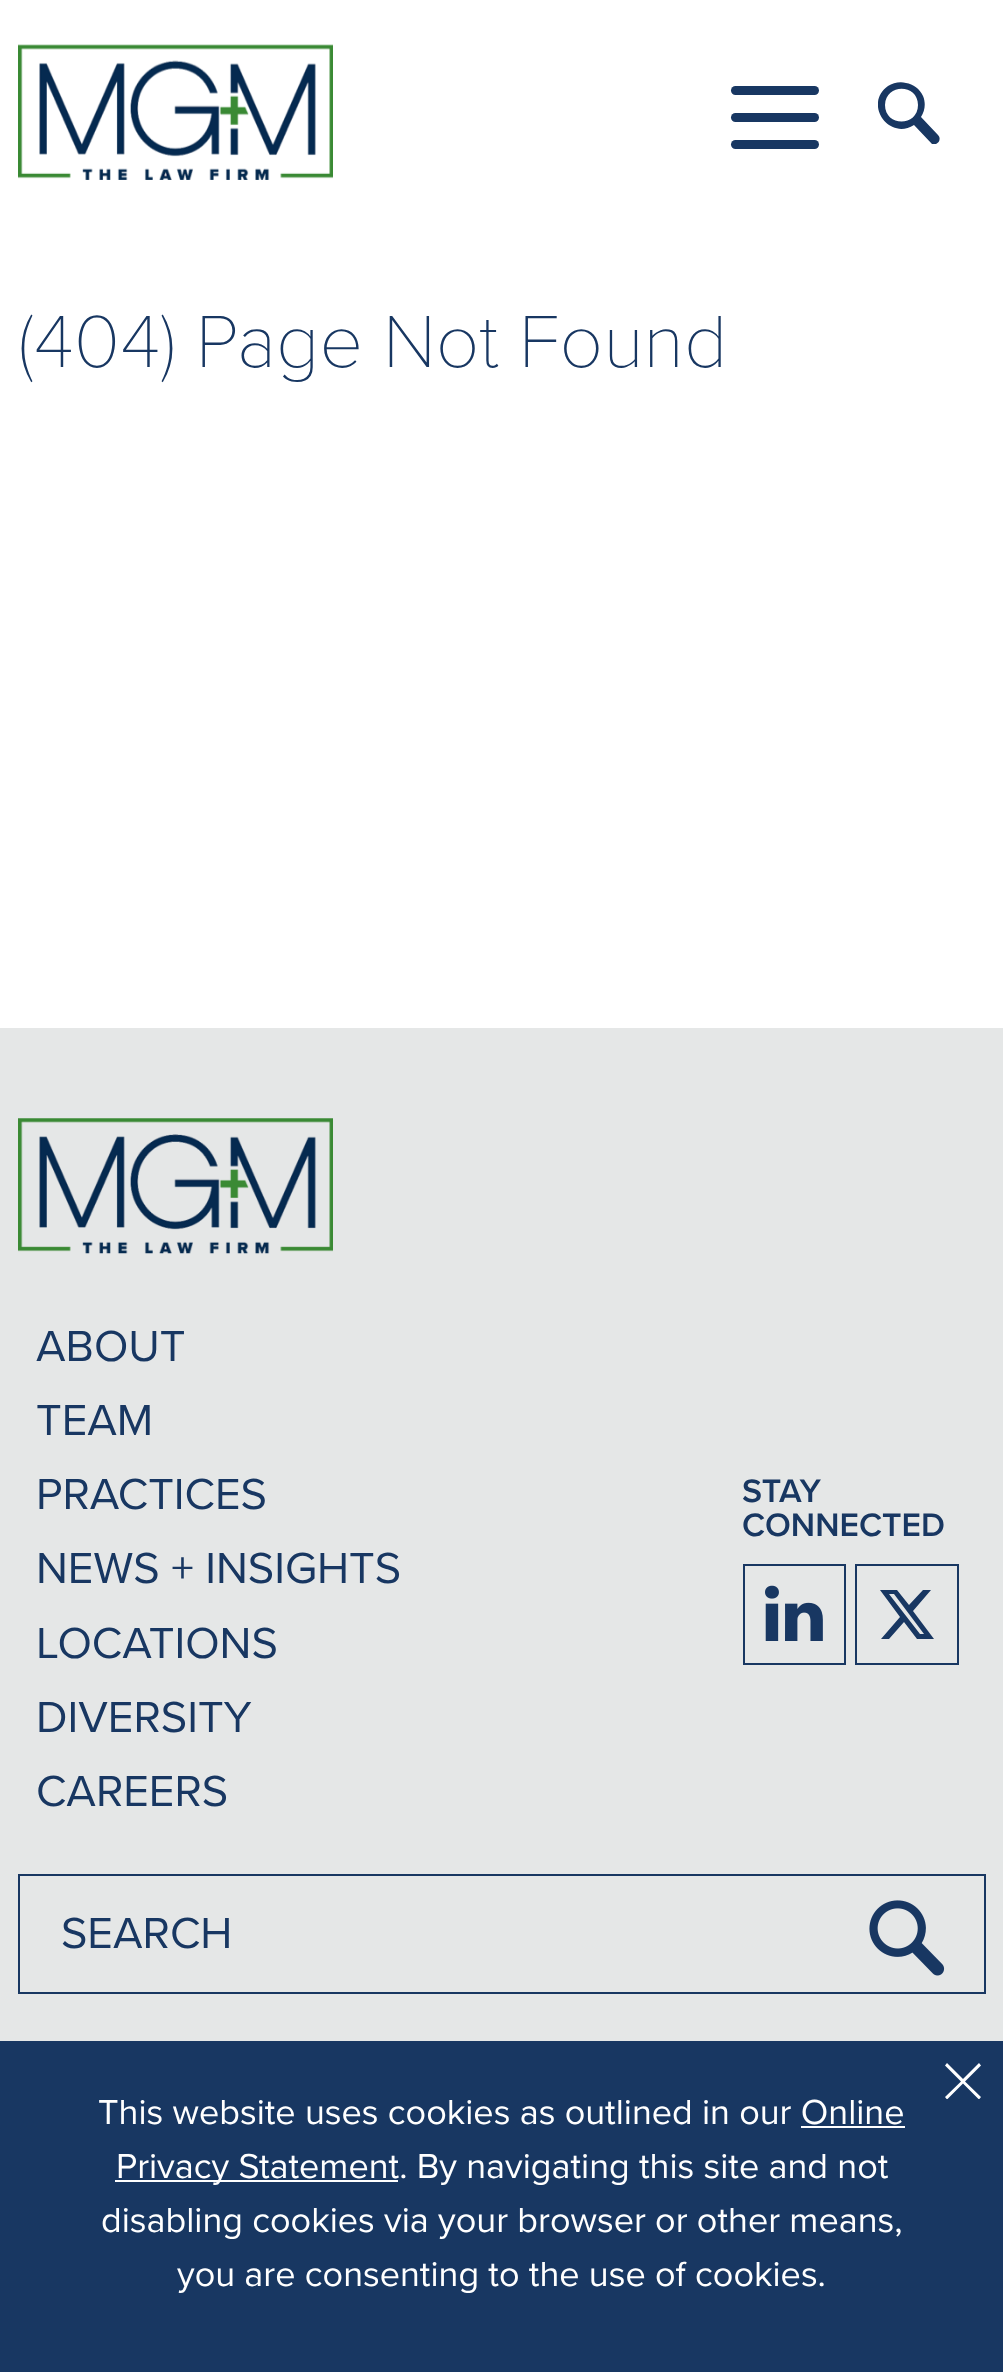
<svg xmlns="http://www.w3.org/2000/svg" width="1003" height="2372">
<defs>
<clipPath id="clip1"><rect x="878" y="81" width="63" height="63"/></clipPath>
<clipPath id="clip2"><rect x="945" y="2063" width="36" height="36"/></clipPath>
</defs>
<rect width="100%" height="100%" fill="#fff"/>
<image x="18" y="44" width="315" height="136" href="media/1.png"/>
<rect x="731" y="86" width="88" height="9" rx="4.5" fill="#183762"/>
<rect x="731" y="113" width="88" height="9" rx="4.5" fill="#183762"/>
<rect x="731" y="140" width="88" height="9" rx="4.5" fill="#183762"/>
<g clip-path="url(#clip1)">
<path d="M938 135l-17-18c4-6 5-14 2-21c-3-7-10-12-17-13c-6-2-13 0-18 3c-25 18 1 55 26 39l18 19c6 2 10-5 6-9zm-53-30c1-22 33-21 33 0c0 22-33 22-33 0z" fill="#183762"/>
</g>
<text x="18" y="367" style="font-family:Proxima Nova;font-size:76.5px;font-weight:100;fill:#183762">(404) Page Not Found</text>
<rect y="1028" width="1003" height="1013" fill="#e5e7e7"/>
<image x="18" y="1118" width="315" height="136" href="media/2.png"/>
<text x="36" y="1361" style="font-family:Proxima Nova;font-size:45px;fill:#183762">ABOUT</text>
<text x="36" y="1435" style="font-family:Proxima Nova;font-size:45px;fill:#183762">TEAM</text>
<text x="36" y="1509" style="font-family:Proxima Nova;font-size:45px;fill:#183762">PRACTICES</text>
<text x="36" y="1583" style="font-family:Proxima Nova;font-size:45px;fill:#183762">NEWS + INSIGHTS</text>
<text x="36" y="1658" style="font-family:Proxima Nova;font-size:45px;fill:#183762">LOCATIONS</text>
<text x="36" y="1732" style="font-family:Proxima Nova;font-size:45px;fill:#183762">DIVERSITY</text>
<text x="36" y="1806" style="font-family:Proxima Nova;font-size:45px;fill:#183762">CAREERS</text>
<text x="742" y="1502" style="font-family:Proxima Nova;font-size:33.75px;font-weight:600;fill:#183762">STAY</text>
<text x="742" y="1536" style="font-family:Proxima Nova;font-size:33.75px;font-weight:600;fill:#183762">CONNECTED</text>
<rect x="744" y="1565" width="101" height="99" fill="none" stroke="#183762" stroke-width="2"/>
<image x="765" y="1585" width="58" height="56" href="media/3.png"/>
<rect x="856" y="1565" width="102" height="99" fill="none" stroke="#183762" stroke-width="2"/>
<path d="M923 1590h8l-18 21l21 28h-17l-13-17l-15 17h-8l19-22l-20-27h17l12 15zm-3 44h4l-30-40h-5z" fill="#183762"/>
<rect x="19" y="1875" width="966" height="118" fill="none" stroke="#183762" stroke-width="2"/>
<text x="61" y="1948" style="font-family:Proxima Nova;font-size:45px;fill:#183762">SEARCH</text>
<image x="869" y="1900" width="76" height="76" href="media/4.png"/>
<rect y="2041" width="1003" height="331" fill="#183762"/>
<g clip-path="url(#clip2)">
<path d="M981 2065.5l-2-2.5l-16 16l-16-16l-2 2.5l16 16l-16 15.5l2 2.5l16-16l16 16l2-2.5l-16-15.5z" fill="#fff"/>
</g>
<text x="98" y="2124" style="font-family:Proxima Nova;font-size:36px;fill:#fff">This website uses cookies as outlined in our Online</text>
<rect x="115" y="2180" width="283" height="2" fill="#fff"/>
<text x="116" y="2178" style="font-family:Proxima Nova;font-size:36px;fill:#fff">Privacy Statement. By navigating this site and not</text>
<rect x="801" y="2126" width="104" height="2" fill="#fff"/>
<text x="101" y="2232" style="font-family:Proxima Nova;font-size:36px;fill:#fff">disabling cookies via your browser or other means,</text>
<text x="177" y="2286" style="font-family:Proxima Nova;font-size:36px;fill:#fff">you are consenting to the use of cookies.</text>
</svg>
